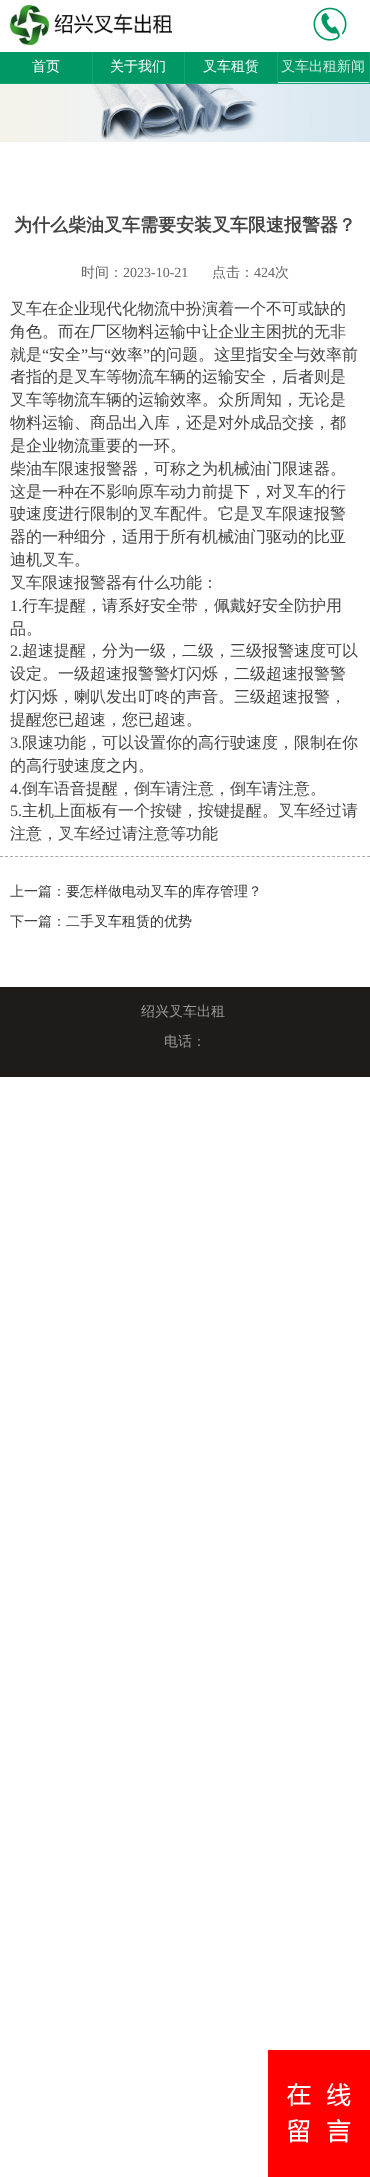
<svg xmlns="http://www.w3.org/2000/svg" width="370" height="2177">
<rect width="100%" height="100%" fill="#fff"/>
<image x="10" y="5" width="162" height="40" href="media/1.png"/>
<image x="313" y="7" width="34" height="34" href="media/2.png"/>
<rect y="52" width="369" height="31" fill="#096"/>
<rect x="92" y="52" width="1" height="32" fill="#12a574"/>
<rect y="83" width="93" height="1" fill="#12a574"/>
<text x="32" y="71" style="font-family:WenQuanYi Zen Hei;font-size:14px;font-weight:500;fill:#fff">首页</text>
<rect x="184" y="52" width="1" height="32" fill="#12a574"/>
<rect x="93" y="83" width="92" height="1" fill="#12a574"/>
<text x="110" y="71" style="font-family:WenQuanYi Zen Hei;font-size:14px;font-weight:500;fill:#fff">关于我们</text>
<rect x="277" y="52" width="1" height="32" fill="#12a574"/>
<rect x="185" y="83" width="93" height="1" fill="#12a574"/>
<text x="203" y="71" style="font-family:WenQuanYi Zen Hei;font-size:14px;font-weight:500;fill:#fff">叉车租赁</text>
<rect x="369" y="52" width="1" height="32" fill="#12a574"/>
<rect x="278" y="83" width="92" height="1" fill="#12a574"/>
<rect x="278" y="82" width="91" height="1" fill="#ccebe0"/>
<text x="281" y="71" style="font-family:WenQuanYi Zen Hei;font-size:14px;font-weight:500;fill:#ccebe0">叉车出租新闻</text>
<image x="0" y="84" width="370" height="58" href="media/3.png"/>
<path d="M0 856.5h370" fill="none" stroke="#a5a5a5" stroke-dasharray="3 2.03"/>
<text x="14" y="231" style="font-family:WenQuanYi Zen Hei;font-size:18px;font-weight:bold;fill:#444">为什么柴油叉车需要安装叉车限速报警器？</text>
<text x="81" y="277" style="font-family:WenQuanYi Zen Hei;font-size:14px;font-weight:500;fill:#666">时间：</text>
<text x="123" y="277" style="font-family:Liberation Serif;font-size:14px;fill:#666">2023-10-21</text>
<text x="212" y="277" style="font-family:WenQuanYi Zen Hei;font-size:14px;font-weight:500;fill:#666">点击：</text>
<text x="254" y="277" style="font-family:Liberation Serif;font-size:14px;fill:#666">424</text>
<text x="275" y="277" style="font-family:WenQuanYi Zen Hei;font-size:14px;font-weight:500;fill:#666">次</text>
<text x="10" y="314" style="font-family:WenQuanYi Zen Hei;font-size:16px;font-weight:500;fill:#444">叉车在企业现代化物流中扮演着一个不可或缺的</text>
<text x="10" y="337" style="font-family:WenQuanYi Zen Hei;font-size:16px;font-weight:500;fill:#444">角色。而在厂区物料运输中让企业主困扰的无非</text>
<text x="10" y="360" style="font-family:WenQuanYi Zen Hei;font-size:16px;font-weight:500;fill:#444">就是</text>
<text x="42" y="360" style="font-family:Liberation Serif;font-size:16px;fill:#444">“</text>
<text x="49" y="360" style="font-family:WenQuanYi Zen Hei;font-size:16px;font-weight:500;fill:#444">安全</text>
<text x="81" y="360" style="font-family:Liberation Serif;font-size:16px;fill:#444">”</text>
<text x="88" y="360" style="font-family:WenQuanYi Zen Hei;font-size:16px;font-weight:500;fill:#444">与</text>
<text x="104" y="360" style="font-family:Liberation Serif;font-size:16px;fill:#444">“</text>
<text x="111" y="360" style="font-family:WenQuanYi Zen Hei;font-size:16px;font-weight:500;fill:#444">效率</text>
<text x="143" y="360" style="font-family:Liberation Serif;font-size:16px;fill:#444">”</text>
<text x="150" y="360" style="font-family:WenQuanYi Zen Hei;font-size:16px;font-weight:500;fill:#444">的问题。这里指安全与效率前</text>
<text x="10" y="382" style="font-family:WenQuanYi Zen Hei;font-size:16px;font-weight:500;fill:#444">者指的是叉车等物流车辆的运输安全，后者则是</text>
<text x="10" y="405" style="font-family:WenQuanYi Zen Hei;font-size:16px;font-weight:500;fill:#444">叉车等物流车辆的运输效率。众所周知，无论是</text>
<text x="10" y="428" style="font-family:WenQuanYi Zen Hei;font-size:16px;font-weight:500;fill:#444">物料运输、商品出入库，还是对外成品交接，都</text>
<text x="10" y="451" style="font-family:WenQuanYi Zen Hei;font-size:16px;font-weight:500;fill:#444">是企业物流重要的一环。</text>
<text x="10" y="474" style="font-family:WenQuanYi Zen Hei;font-size:16px;font-weight:500;fill:#444">柴油车限速报警器，可称之为机械油门限速器。</text>
<text x="10" y="497" style="font-family:WenQuanYi Zen Hei;font-size:16px;font-weight:500;fill:#444">这是一种在不影响原车动力前提下，对叉车的行</text>
<text x="10" y="519" style="font-family:WenQuanYi Zen Hei;font-size:16px;font-weight:500;fill:#444">驶速度进行限制的叉车配件。它是叉车限速报警</text>
<text x="10" y="542" style="font-family:WenQuanYi Zen Hei;font-size:16px;font-weight:500;fill:#444">器的一种细分，适用于所有机械油门驱动的比亚</text>
<text x="10" y="565" style="font-family:WenQuanYi Zen Hei;font-size:16px;font-weight:500;fill:#444">迪机叉车。</text>
<text x="10" y="588" style="font-family:WenQuanYi Zen Hei;font-size:16px;font-weight:500;fill:#444">叉车限速报警器有什么功能：</text>
<text x="10" y="611" style="font-family:Liberation Serif;font-size:16px;fill:#444">1.</text>
<text x="22" y="611" style="font-family:WenQuanYi Zen Hei;font-size:16px;font-weight:500;fill:#444">行车提醒，请系好安全带，佩戴好安全防护用</text>
<text x="10" y="634" style="font-family:WenQuanYi Zen Hei;font-size:16px;font-weight:500;fill:#444">品。</text>
<text x="10" y="656" style="font-family:Liberation Serif;font-size:16px;fill:#444">2.</text>
<text x="22" y="656" style="font-family:WenQuanYi Zen Hei;font-size:16px;font-weight:500;fill:#444">超速提醒，分为一级，二级，三级报警速度可以</text>
<text x="10" y="679" style="font-family:WenQuanYi Zen Hei;font-size:16px;font-weight:500;fill:#444">设定。一级超速报警警灯闪烁，二级超速报警警</text>
<text x="10" y="702" style="font-family:WenQuanYi Zen Hei;font-size:16px;font-weight:500;fill:#444">灯闪烁，喇叭发出叮咚的声音。三级超速报警，</text>
<text x="10" y="725" style="font-family:WenQuanYi Zen Hei;font-size:16px;font-weight:500;fill:#444">提醒您已超速，您已超速。</text>
<text x="10" y="748" style="font-family:Liberation Serif;font-size:16px;fill:#444">3.</text>
<text x="22" y="748" style="font-family:WenQuanYi Zen Hei;font-size:16px;font-weight:500;fill:#444">限速功能，可以设置你的高行驶速度，限制在你</text>
<text x="10" y="771" style="font-family:WenQuanYi Zen Hei;font-size:16px;font-weight:500;fill:#444">的高行驶速度之内。</text>
<text x="10" y="794" style="font-family:Liberation Serif;font-size:16px;fill:#444">4.</text>
<text x="22" y="794" style="font-family:WenQuanYi Zen Hei;font-size:16px;font-weight:500;fill:#444">倒车语音提醒，倒车请注意，倒车请注意。</text>
<text x="10" y="816" style="font-family:Liberation Serif;font-size:16px;fill:#444">5.</text>
<text x="22" y="816" style="font-family:WenQuanYi Zen Hei;font-size:16px;font-weight:500;fill:#444">主机上面板有一个按键，按键提醒。叉车经过请</text>
<text x="10" y="839" style="font-family:WenQuanYi Zen Hei;font-size:16px;font-weight:500;fill:#444">注意，叉车经过请注意等功能</text>
<text x="10" y="896" style="font-family:WenQuanYi Zen Hei;font-size:14px;font-weight:500;fill:#444">上一篇：</text>
<text x="66" y="896" style="font-family:WenQuanYi Zen Hei;font-size:14px;font-weight:500;fill:#333">要怎样做电动叉车的库存管理？</text>
<text x="10" y="926" style="font-family:WenQuanYi Zen Hei;font-size:14px;font-weight:500;fill:#444">下一篇：</text>
<text x="66" y="926" style="font-family:WenQuanYi Zen Hei;font-size:14px;font-weight:500;fill:#333">二手叉车租赁的优势</text>
<rect y="987" width="370" height="90" fill="#1d1c18"/>
<text x="141" y="1016" style="font-family:WenQuanYi Zen Hei;font-size:14px;font-weight:500;fill:#999">绍兴叉车出租</text>
<text x="164" y="1046" style="font-family:WenQuanYi Zen Hei;font-size:14px;font-weight:500;fill:#999">电话：</text>
<image x="268" y="2050" width="102" height="127" href="media/4.png"/>
</svg>
